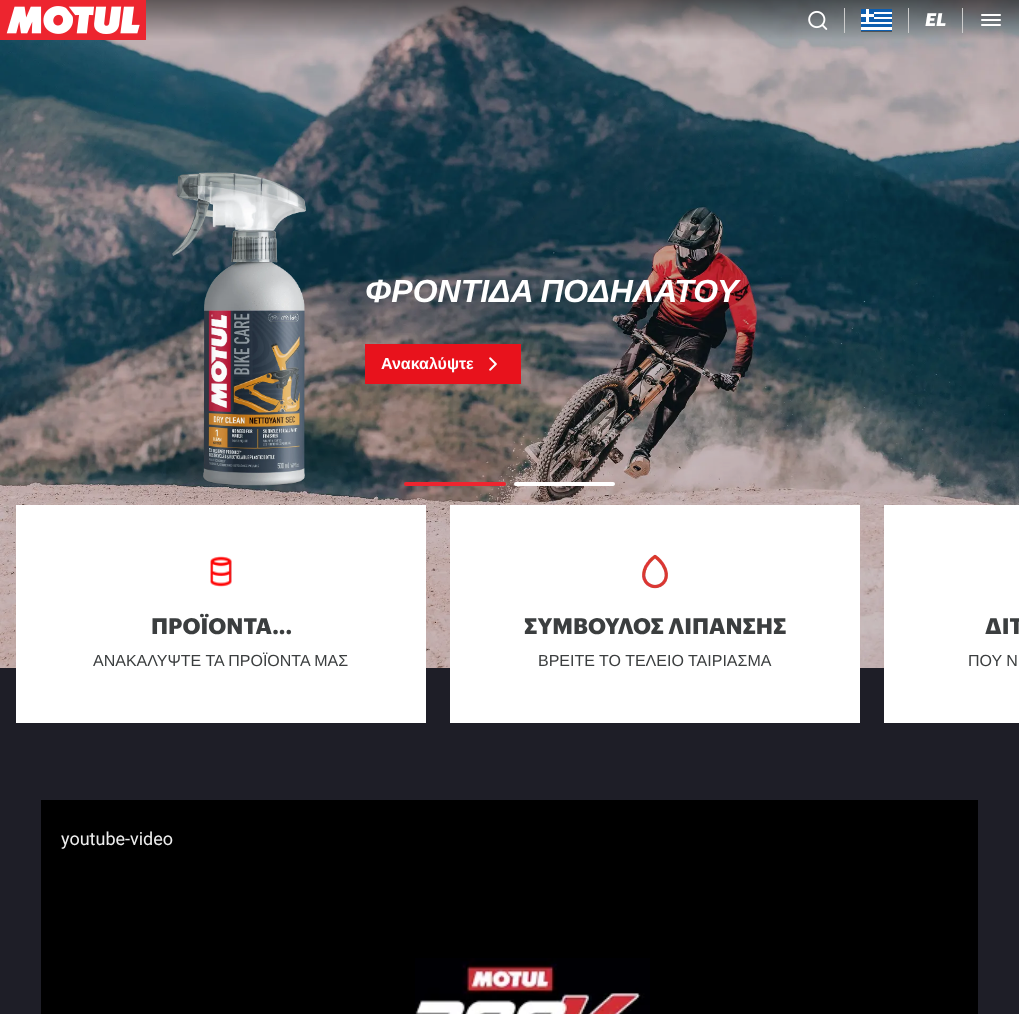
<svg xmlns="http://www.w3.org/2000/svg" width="1019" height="1014">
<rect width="100%" height="100%" fill="#1e1e27"/>
<image x="0" y="0" width="1019" height="668" href="media/5.png"/>
<rect width="146" height="40" fill="#ed252f"/>
<image x="6" y="6" width="134" height="28" href="media/1.png"/>
<image x="808" y="10" width="20" height="20" href="media/2.png"/>
<rect x="844" y="8" width="1" height="25" fill="#ccc"/>
<rect x="861" y="9" width="31" height="23" fill="#515355" filter="blur(0.5px)"/>
<image x="861" y="9" width="31" height="22" href="media/3.png"/>
<rect x="908" y="8" width="1" height="25" fill="#ccc"/>
<text x="925" y="26" style="font-family:Graphik;font-size:18px;font-weight:bold;font-style:italic;fill:#fff">EL</text>
<rect x="962" y="8" width="1" height="25" fill="#ccc"/>
<image x="981" y="14" width="20" height="12" href="media/4.png"/>
<image x="166" y="172" width="141" height="314" href="media/6.png"/>
<text x="365" y="302" word-spacing="-1" style="font-family:Liberation Sans;font-size:32px;font-weight:bold;font-style:italic;fill:#fff">ΦΡΟΝΤΙΔΑ ΠΟΔΗΛΑΤΟΥ</text>
<rect x="365" y="344" width="156" height="40" fill="#e8121c"/>
<text x="381" y="369" style="font-family:Liberation Sans;font-size:16px;font-weight:bold;fill:#fff">Ανακαλύψτε</text>
<image x="489" y="357" width="8" height="14" href="media/7.png"/>
<rect x="404" y="482" width="102" height="4" rx="2" fill="#ed252f"/>
<rect x="514" y="482" width="101" height="4" rx="2" fill="#fff"/>
<rect x="16" y="505" width="410" height="218" fill="#fff"/>
<image x="210" y="556" width="22" height="31" href="media/8.png"/>
<text x="151" y="634" style="font-family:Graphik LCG;font-size:22px;font-weight:bold;fill:#3b3e3f">ΠΡΟΪΟΝΤΑ...</text>
<text x="93" y="666" style="font-family:Liberation Sans;font-size:16px;fill:#3b3e3f">ΑΝΑΚΑΛΥΨΤΕ ΤΑ ΠΡΟΪΟΝΤΑ ΜΑΣ</text>
<rect x="450" y="505" width="410" height="218" fill="#fff"/>
<image x="642" y="554" width="26" height="35" href="media/9.png"/>
<text x="524" y="634" style="font-family:Graphik LCG;font-size:22px;font-weight:bold;fill:#3b3e3f">ΣΥΜΒΟΥΛΟΣ ΛΙΠΑΝΣΗΣ</text>
<text x="538" y="666" style="font-family:Liberation Sans;font-size:16px;fill:#3b3e3f">ΒΡΕΙΤΕ ΤΟ ΤΕΛΕΙΟ ΤΑΙΡΙΑΣΜΑ</text>
<rect x="884" y="505" width="135" height="218" fill="#fff"/>
<text x="985" y="634" style="font-family:Graphik LCG;font-size:22px;font-weight:bold;fill:#3b3e3f">ΔΙΤ</text>
<text x="968" y="666" style="font-family:Liberation Sans;font-size:16px;fill:#3b3e3f">ΠΟΥ Ν</text>
<rect x="41" y="800" width="937" height="214" fill="#000"/>
<image x="415" y="958" width="235" height="56" href="media/10.png"/>
<text x="61" y="845" style="font-family:Roboto;font-size:18px;fill:#eee">youtube-video</text>
</svg>
